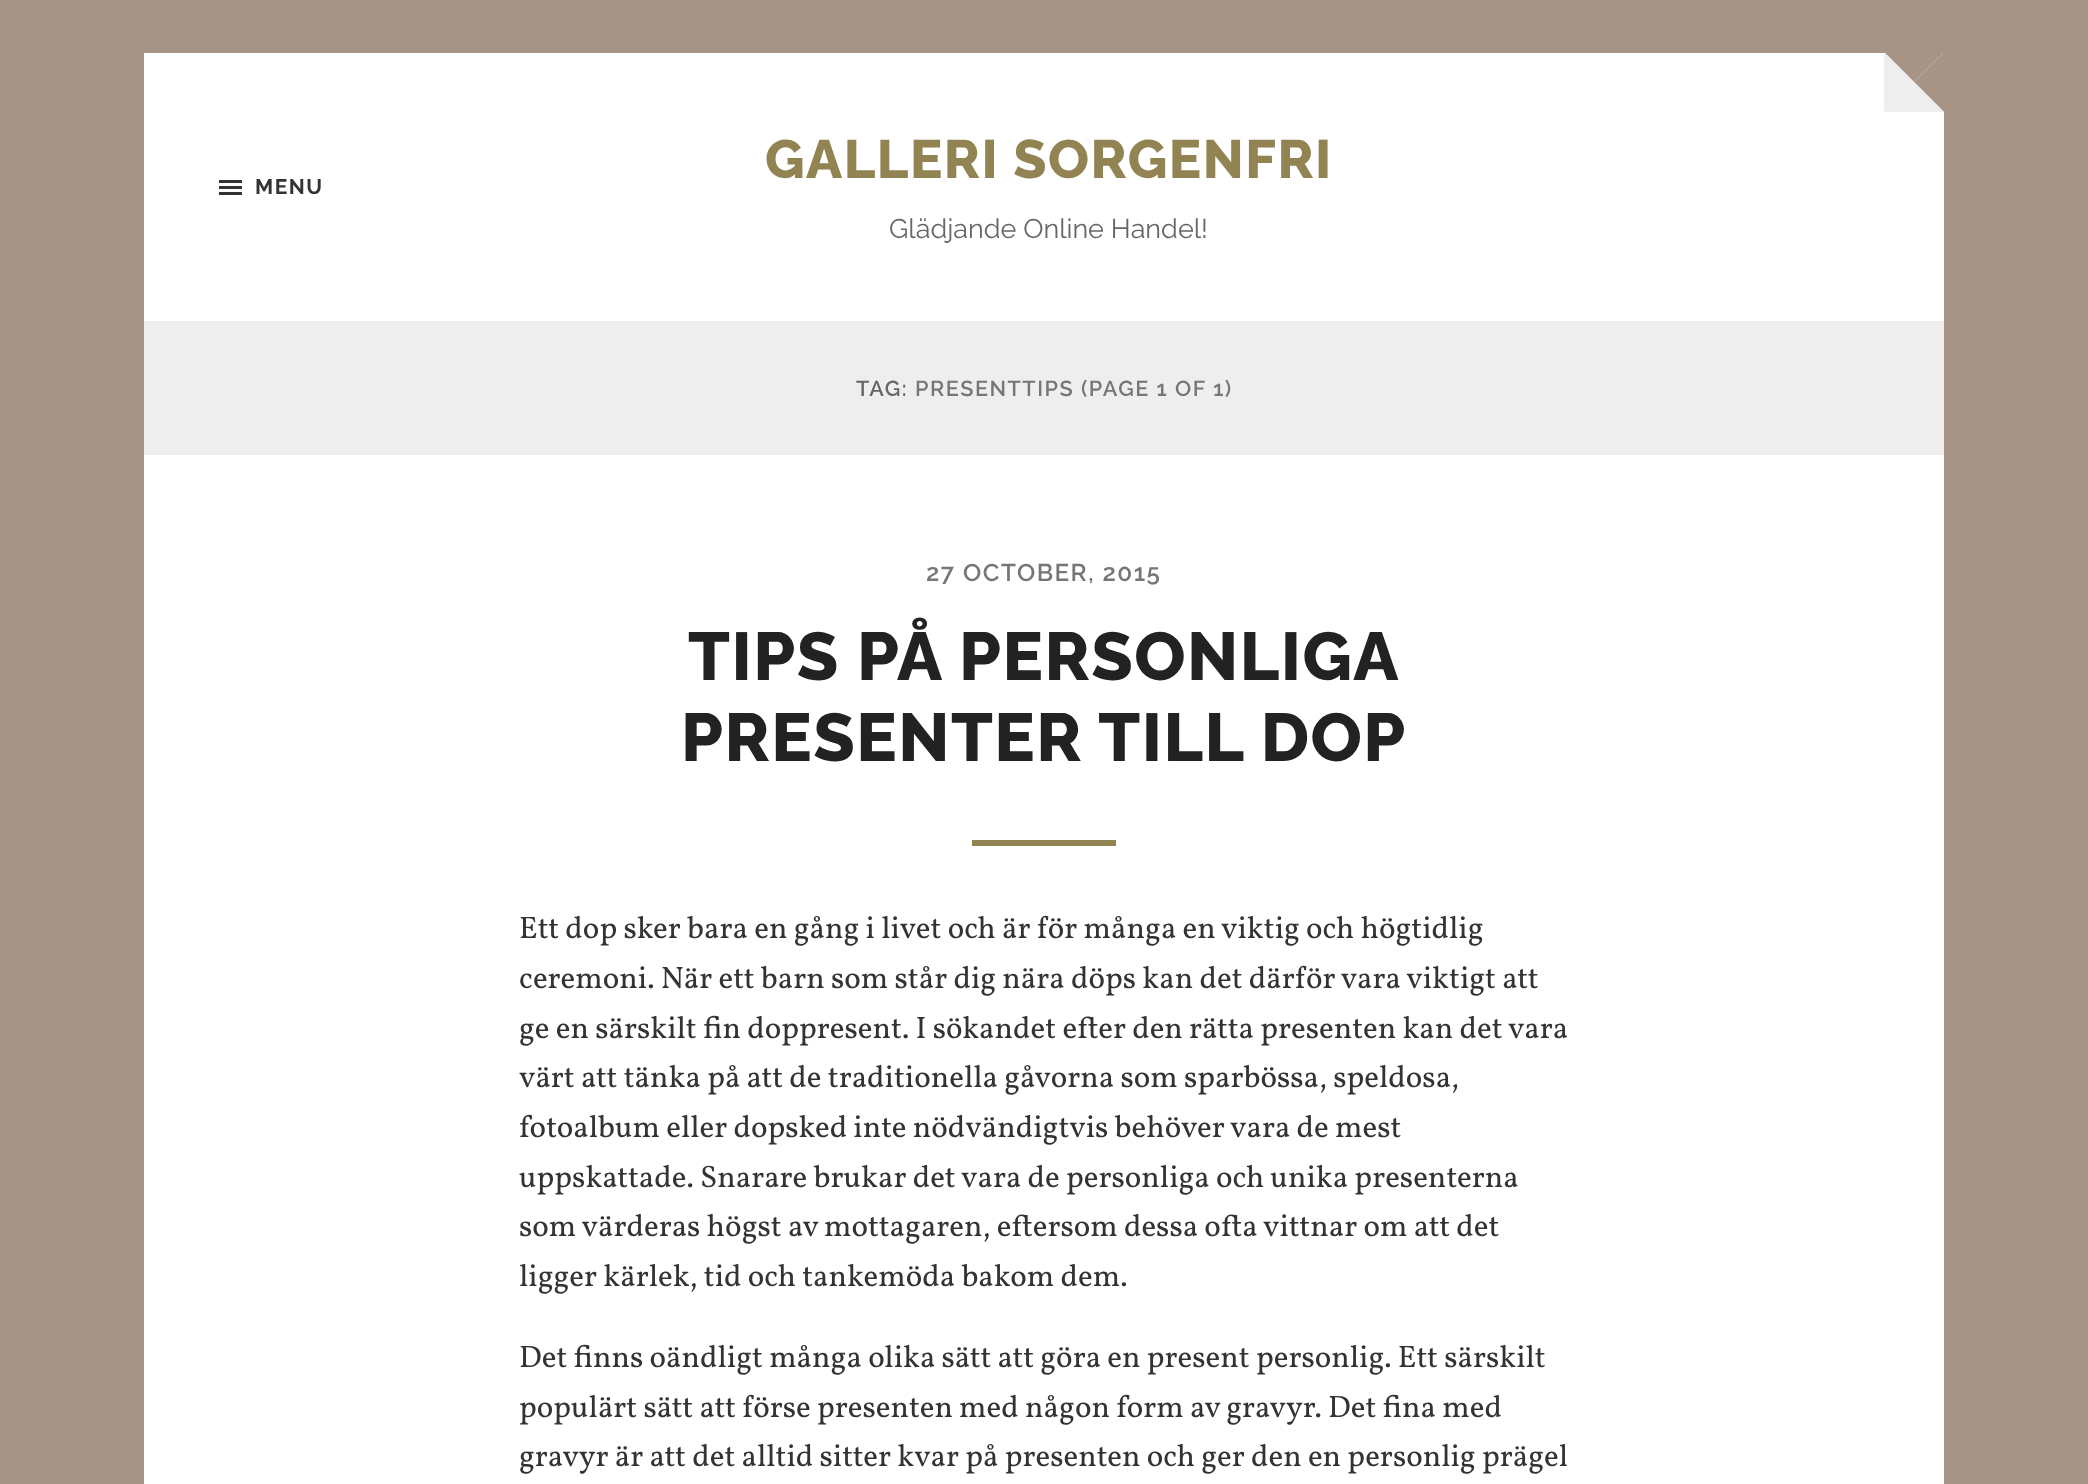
<svg xmlns="http://www.w3.org/2000/svg" width="2088" height="1484">
<rect width="100%" height="100%" fill="#a69486"/>
<rect x="144" y="53" width="1800" height="1431" fill="#fff"/>
<path d="M1884 52h60l-30 30z" fill="#a69486"/>
<path d="M1944 52v60l-30-30z" fill="#a69486"/>
<path d="M1944 112h-60l30-30z" fill="#eee"/>
<path d="M1884 112v-60l30 30z" fill="#eee"/>
<rect x="219" y="180" width="23" height="3" fill="#333"/>
<rect x="219" y="186" width="23" height="3" fill="#333"/>
<rect x="219" y="192" width="23" height="3" fill="#333"/>
<text x="255" y="194" style="font-family:'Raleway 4';font-size:21px;font-weight:100;letter-spacing:1.5px;fill:#333">MENU</text>
<text x="765" y="178" style="font-family:'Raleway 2';font-size:54px;font-weight:100;letter-spacing:1.5px;fill:#928452">GALLERI SORGENFRI</text>
<text x="889" y="238" style="font-family:'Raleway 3';font-size:27px;font-weight:100;fill:#666">Glädjande Online Handel!</text>
<rect x="144" y="321" width="1800" height="134" fill="#eee"/>
<text x="856" y="396" style="font-family:Raleway;font-size:21.6px;font-weight:100;letter-spacing:1.5px;fill:#666">TAG:</text>
<text x="915" y="396" style="font-family:Raleway;font-size:21.6px;font-weight:100;letter-spacing:1.5px;fill:#767676">PRESENTTIPS (PAGE 1 OF 1)</text>
<text x="926" y="581" style="font-family:Raleway;font-size:24.25px;font-weight:100;letter-spacing:1.5px;fill:#767676">27 OCTOBER, 2015</text>
<text x="688" y="680" style="font-family:'Raleway 2';font-size:67.5px;font-weight:100;letter-spacing:1.5px;fill:#222">TIPS PÅ PERSONLIGA</text>
<text x="681" y="761" style="font-family:'Raleway 2';font-size:67.5px;font-weight:100;letter-spacing:1.5px;fill:#222">PRESENTER TILL DOP</text>
<rect x="972" y="840" width="144" height="6" fill="#928452"/>
<text x="519" y="938" style="font-family:Vollkorn;font-size:31.05px;fill:#333">Ett dop sker bara en gång i livet och är för många en viktig och högtidlig</text>
<text x="519" y="988" style="font-family:Vollkorn;font-size:31.05px;fill:#333">ceremoni. När ett barn som står dig nära döps kan det därför vara viktigt att</text>
<text x="519" y="1038" style="font-family:Vollkorn;font-size:31.05px;fill:#333">ge en särskilt fin doppresent. I sökandet efter den rätta presenten kan det vara</text>
<text x="519" y="1087" style="font-family:Vollkorn;font-size:31.05px;fill:#333">värt att tänka på att de traditionella gåvorna som sparbössa, speldosa,</text>
<text x="519" y="1137" style="font-family:Vollkorn;font-size:31.05px;fill:#333">fotoalbum eller dopsked inte nödvändigtvis behöver vara de mest</text>
<text x="519" y="1187" style="font-family:Vollkorn;font-size:31.05px;fill:#333">uppskattade. Snarare brukar det vara de personliga och unika presenterna</text>
<text x="519" y="1236" style="font-family:Vollkorn;font-size:31.05px;fill:#333">som värderas högst av mottagaren, eftersom dessa ofta vittnar om att det</text>
<text x="519" y="1286" style="font-family:Vollkorn;font-size:31.05px;fill:#333">ligger kärlek, tid och tankemöda bakom dem.</text>
<text x="519" y="1367" style="font-family:Vollkorn;font-size:31.05px;fill:#333">Det finns oändligt många olika sätt att göra en present personlig. Ett särskilt</text>
<text x="519" y="1417" style="font-family:Vollkorn;font-size:31.05px;fill:#333">populärt sätt att förse presenten med någon form av gravyr. Det fina med</text>
<text x="519" y="1466" style="font-family:Vollkorn;font-size:31.05px;fill:#333">gravyr är att det alltid sitter kvar på presenten och ger den en personlig prägel</text>
</svg>
